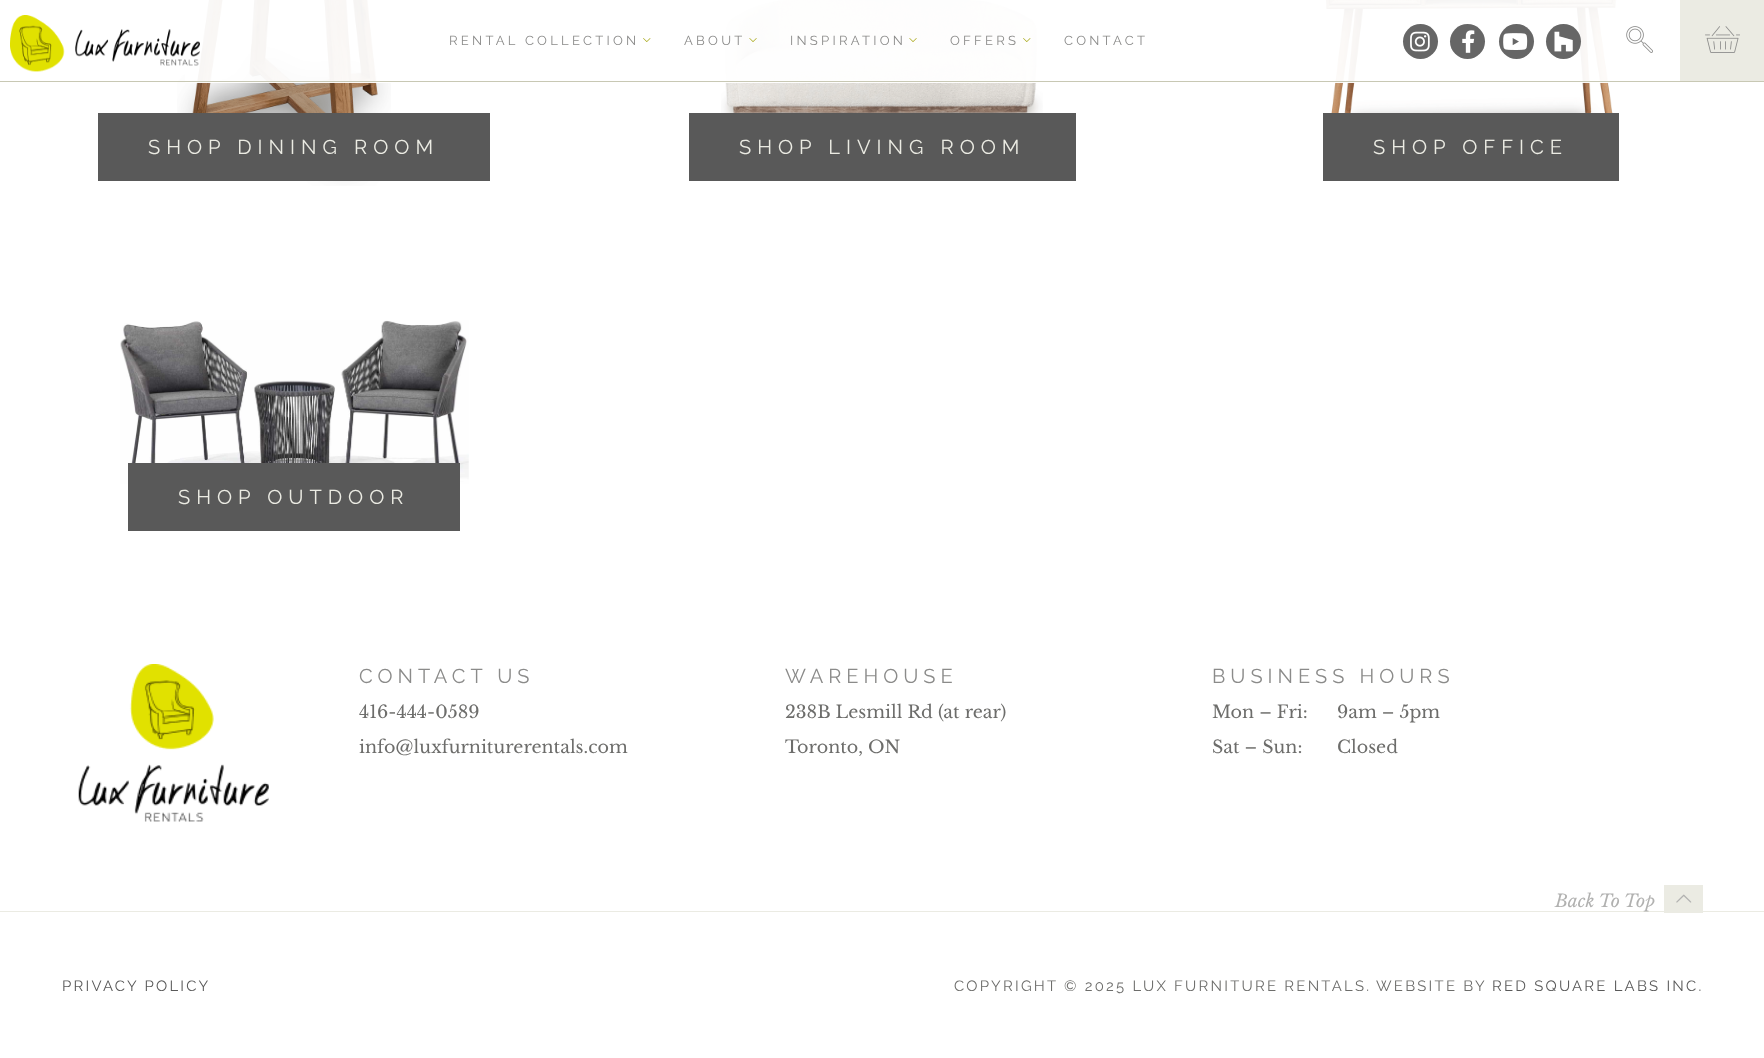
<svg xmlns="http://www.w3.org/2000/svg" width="1764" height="1058">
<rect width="100%" height="100%" fill="#fff"/>
<image x="177" y="0" width="214" height="186" href="media/12.png"/>
<image x="721" y="0" width="322" height="113" href="media/13.png"/>
<image x="1325" y="0" width="293" height="113" href="media/14.png"/>
<rect x="185" width="1431" height="83" fill="#fffffff2"/>
<rect y="81" width="1764" height="1" fill="#c8c8b4"/>
<image x="10" y="15" width="190" height="57" href="media/1.png"/>
<text x="449" y="45" style="font-family:Raleway;font-size:13.1px;letter-spacing:3.25px;fill:#8b8b8a">RENTAL COLLECTION</text>
<image x="643" y="38" width="8" height="4" href="media/2.png"/>
<text x="684" y="45" style="font-family:Raleway;font-size:13.1px;letter-spacing:3.25px;fill:#8b8b8a">ABOUT</text>
<image x="749" y="38" width="8" height="4" href="media/3.png"/>
<text x="790" y="45" style="font-family:Raleway;font-size:13.1px;letter-spacing:3.25px;fill:#8b8b8a">INSPIRATION</text>
<image x="909" y="38" width="8" height="4" href="media/4.png"/>
<text x="950" y="45" style="font-family:Raleway;font-size:13.1px;letter-spacing:3.25px;fill:#8b8b8a">OFFERS</text>
<image x="1023" y="38" width="8" height="4" href="media/5.png"/>
<text x="1064" y="45" style="font-family:Raleway;font-size:13.1px;letter-spacing:3.25px;fill:#8b8b8a">CONTACT</text>
<circle cx="1420.5" cy="41.5" r="17.5" fill="#666"/>
<image x="1410" y="31" width="20" height="21" href="media/6.png"/>
<circle cx="1467.5" cy="41.5" r="17.5" fill="#666"/>
<image x="1462" y="30" width="13" height="23" href="media/7.png"/>
<circle cx="1516.5" cy="41.5" r="17.5" fill="#666"/>
<image x="1503" y="33" width="25" height="17" href="media/8.png"/>
<circle cx="1563.5" cy="41.5" r="17.5" fill="#666"/>
<image x="1554" y="31" width="19" height="21" href="media/9.png"/>
<image x="1626" y="26" width="27" height="27" href="media/10.png"/>
<rect x="1680" width="84" height="81" fill="#ebebe3"/>
<image x="1705" y="26" width="35" height="27" href="media/11.png"/>
<rect x="98" y="113" width="392" height="68" fill="#595959"/>
<text x="148" y="154" style="font-family:Raleway;font-size:20.1px;letter-spacing:6px;fill:#ebebe3">SHOP DINING ROOM</text>
<rect x="689" y="113" width="387" height="68" fill="#595959"/>
<text x="739" y="154" style="font-family:Raleway;font-size:20.1px;letter-spacing:6px;fill:#ebebe3">SHOP LIVING ROOM</text>
<rect x="1323" y="113" width="296" height="68" fill="#595959"/>
<text x="1373" y="154" style="font-family:Raleway;font-size:20.1px;letter-spacing:6px;fill:#ebebe3">SHOP OFFICE</text>
<image x="120" y="320" width="349" height="164" href="media/15.png"/>
<rect x="128" y="463" width="332" height="68" fill="#595959"/>
<text x="178" y="504" style="font-family:Raleway;font-size:20.1px;letter-spacing:6px;fill:#ebebe3">SHOP OUTDOOR</text>
<image x="78" y="664" width="191" height="158" href="media/16.png"/>
<text x="359" y="683" style="font-family:Raleway;font-size:20px;letter-spacing:5px;fill:#8b8b8a">CONTACT US</text>
<text x="359" y="718" style="font-family:Libre Baskerville;font-size:17.5px;fill:#6d6d6b">416-444-0589</text>
<text x="359" y="753" style="font-family:Libre Baskerville;font-size:17.5px;fill:#6d6d6b">info@luxfurniturerentals.com</text>
<text x="785" y="683" style="font-family:Raleway;font-size:20px;letter-spacing:5px;fill:#8b8b8a">WAREHOUSE</text>
<text x="785" y="718" style="font-family:Libre Baskerville;font-size:17.5px;fill:#6d6d6b">238B Lesmill Rd (at rear)</text>
<text x="785" y="753" style="font-family:Libre Baskerville;font-size:17.5px;fill:#6d6d6b">Toronto, ON</text>
<text x="1212" y="683" style="font-family:Raleway;font-size:20px;letter-spacing:5px;fill:#8b8b8a">BUSINESS HOURS</text>
<text x="1212" y="718" style="font-family:Libre Baskerville;font-size:17.5px;fill:#6d6d6b">Mon – Fri:</text>
<text x="1337" y="718" style="font-family:Libre Baskerville;font-size:17.5px;fill:#6d6d6b">9am – 5pm</text>
<text x="1212" y="753" style="font-family:Libre Baskerville;font-size:17.5px;fill:#6d6d6b">Sat – Sun:</text>
<text x="1337" y="753" style="font-family:Libre Baskerville;font-size:17.5px;fill:#6d6d6b">Closed</text>
<rect y="911" width="1764" height="1" fill="#ebebe3"/>
<text x="1555" y="907" style="font-family:Libre Baskerville;font-size:17.5px;font-style:italic;fill:#b1b1b0">Back To Top</text>
<rect x="1664" y="885" width="39" height="28" fill="#ebebe3"/>
<image x="1676" y="894" width="16" height="9" href="media/17.png"/>
<text x="62" y="991" style="font-family:Raleway;font-size:14.9px;letter-spacing:2.25px;fill:#595959">PRIVACY POLICY</text>
<text x="954" y="991" style="font-family:Raleway;font-size:14.9px;letter-spacing:2.25px;fill:#6d6d6b">COPYRIGHT © 2025 LUX FURNITURE RENTALS.</text>
<text x="1376" y="991" style="font-family:Raleway;font-size:14.9px;letter-spacing:2.25px;fill:#6d6d6b">WEBSITE BY</text>
<text x="1492" y="991" style="font-family:Raleway;font-size:14.9px;letter-spacing:2.25px;fill:#595959">RED SQUARE LABS INC.</text>
</svg>
